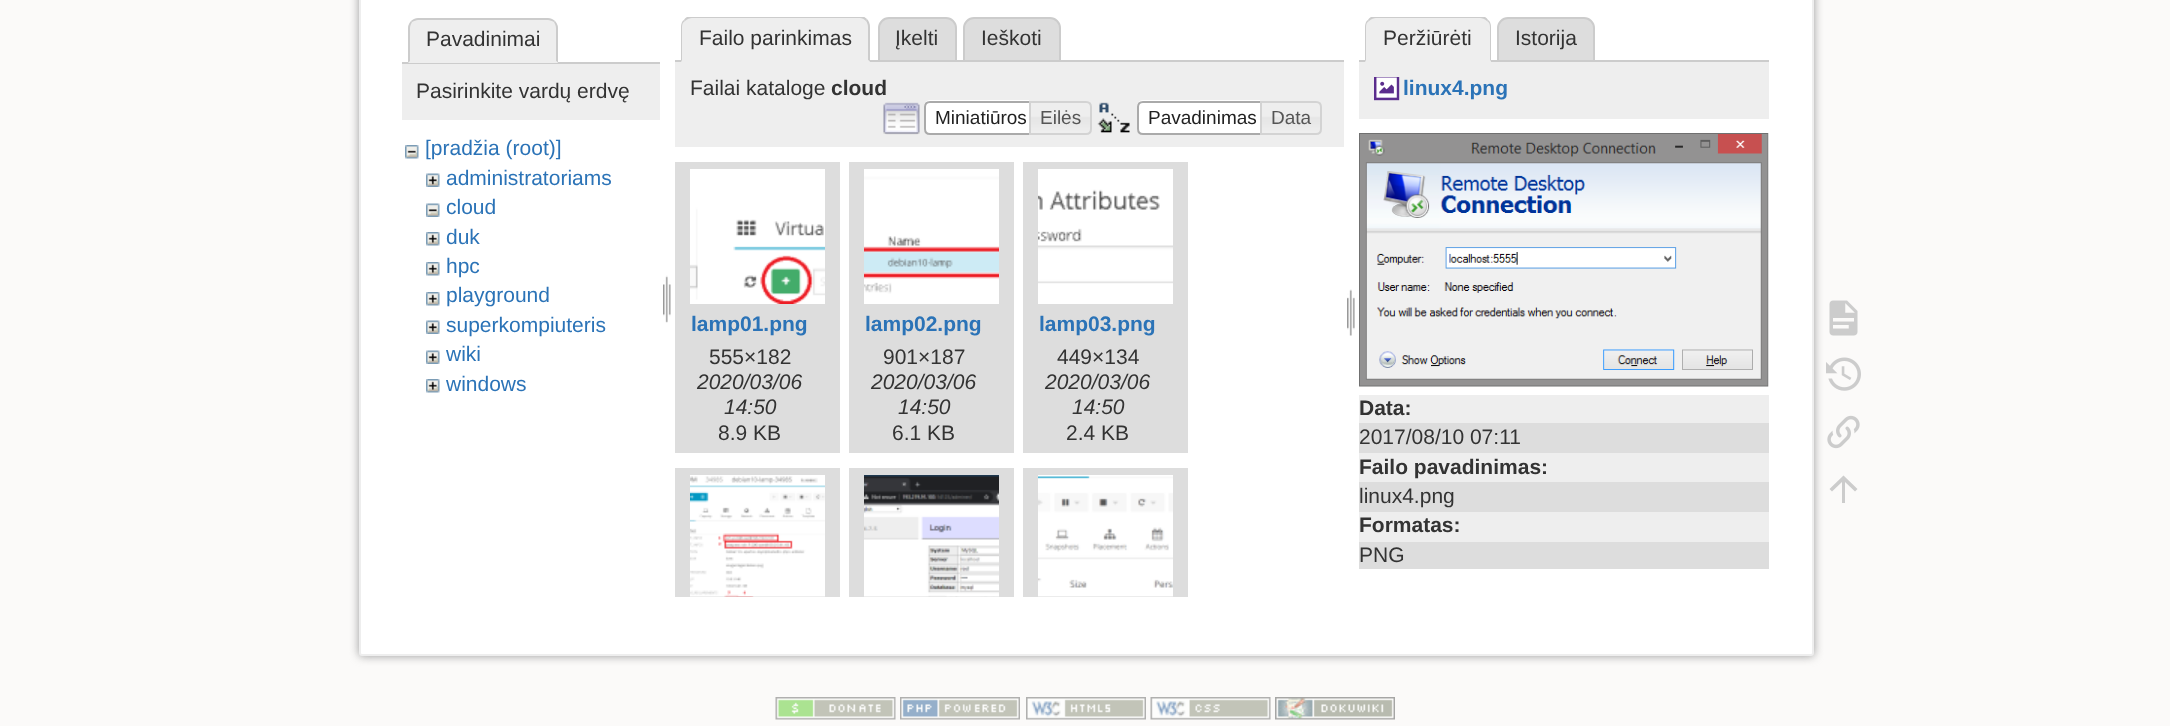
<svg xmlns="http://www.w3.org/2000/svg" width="2170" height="726">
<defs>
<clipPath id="clip1"><rect x="675" y="17" width="669" height="45"/></clipPath>
<clipPath id="clip2"><rect x="1359" y="17" width="410" height="45"/></clipPath>
</defs>
<rect width="100%" height="100%" fill="#fbfaf9"/>
<rect x="359" y="-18" width="1455" height="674" rx="3" fill="#999" filter="blur(5px)"/>
<rect x="360" y="-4" width="1453" height="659" rx="2" fill="#fff" stroke="#eee" stroke-width="2"/>
<rect x="402" y="62" width="258" height="2" fill="#ccc"/>
<path d="M419 18h128c6 0 11 5 11 11v34h-150v-34c0-6 5-11 11-11z" fill="#eee"/>
<path d="M418 18c-2 0-5 1-7 3l1 1c2-1 4-2 6-2h130c2 0 4 1 6 2l1-1c-2-2-5-3-7-3z" fill="#ccc"/>
<path d="M558 63v-35c0-2-1-5-3-7l-1 1c1 2 2 4 2 6v33z" fill="#ccc"/>
<path d="M558 63l-2-2v1h-146v-1l-2 2z" fill="#eee"/>
<path d="M408 63l2-2v-33c0-2 1-4 2-6l-1-1c-2 2-3 5-3 7z" fill="#ccc"/>
<text x="426" y="46" style="font-family:Liberation Sans;font-size:21px;fill:#333">Pavadinimai</text>
<rect x="402" y="64" width="258" height="56" fill="#eee"/>
<text x="416" y="98" style="font-family:Liberation Sans;font-size:21px;fill:#333">Pasirinkite vardų erdvę</text>
<image x="405" y="145" width="14" height="14" href="media/1.png"/>
<text x="425" y="155" style="font-family:Liberation Sans;font-size:21px;fill:#2b73b7">[pradžia (root)]</text>
<image x="426" y="173" width="14" height="14" href="media/2.png"/>
<text x="446" y="185" style="font-family:Liberation Sans;font-size:21px;fill:#2b73b7">administratoriams</text>
<image x="426" y="203" width="14" height="14" href="media/3.png"/>
<text x="446" y="214" style="font-family:Liberation Sans;font-size:21px;fill:#2b73b7">cloud</text>
<image x="426" y="232" width="14" height="14" href="media/4.png"/>
<text x="446" y="244" style="font-family:Liberation Sans;font-size:21px;fill:#2b73b7">duk</text>
<image x="426" y="262" width="14" height="14" href="media/4.png"/>
<text x="446" y="273" style="font-family:Liberation Sans;font-size:21px;fill:#2b73b7">hpc</text>
<image x="426" y="292" width="14" height="14" href="media/4.png"/>
<text x="446" y="302" style="font-family:Liberation Sans;font-size:21px;fill:#2b73b7">playground</text>
<image x="426" y="320" width="14" height="14" href="media/2.png"/>
<text x="446" y="332" style="font-family:Liberation Sans;font-size:21px;fill:#2b73b7">superkompiuteris</text>
<image x="426" y="350" width="14" height="14" href="media/2.png"/>
<text x="446" y="361" style="font-family:Liberation Sans;font-size:21px;fill:#2b73b7">wiki</text>
<image x="426" y="379" width="14" height="14" href="media/4.png"/>
<text x="446" y="391" style="font-family:Liberation Sans;font-size:21px;fill:#2b73b7">windows</text>
<image x="663" y="275" width="8" height="48" href="media/5.png"/>
<path d="M889 18h57c5.5 0 10 4.5 10 10v33h-77v-33c0-5.5 4.5-10 10-10z" fill="#ddd" stroke="#ccc" stroke-width="2"/>
<path d="M974 18h76c5.5 0 10 4.5 10 10v33h-96v-33c0-5.5 4.5-10 10-10z" fill="#ddd" stroke="#ccc" stroke-width="2"/>
<rect x="675" y="60" width="669" height="2" fill="#ccc"/>
<path d="M692 17h167c6 0 11 5 11 11v34h-189v-34c0-6 5-11 11-11z" fill="#eee"/>
<g clip-path="url(#clip1)">
<path d="M692 18c-2 0-5 1-7 3l-1-1c1-2 3-3 5-4h174l4 3l-1 2c-2-2-4-3-6-3z" fill="#ccc"/>
</g>
<path d="M870 62v-35c0-3-1-6-3-8l-1 2c1 1 2 4 2 6v33z" fill="#ccc"/>
<path d="M870 62h-189l1-2h186z" fill="#eee"/>
<path d="M681 62l1-2v-33c0-3 1-5 3-6l-1-1c-2 1-3 4-3 7z" fill="#ccc"/>
<text x="699" y="45" style="font-family:Liberation Sans;font-size:21px;fill:#333">Failo parinkimas</text>
<text x="895" y="45" style="font-family:Liberation Sans;font-size:21px;fill:#333">Įkelti</text>
<text x="981" y="45" style="font-family:Liberation Sans;font-size:21px;fill:#333">Ieškoti</text>
<rect x="675" y="62" width="669" height="85" fill="#eee"/>
<text x="690" y="95" style="font-family:Liberation Sans;font-size:21px;fill:#333">Failai kataloge</text>
<text x="831" y="95" style="font-family:Liberation Sans;font-size:21px;font-weight:bold;fill:#333">cloud</text>
<image x="883" y="102" width="37" height="33" href="media/6.png"/>
<path d="M930 101h107v34h-107c-3.5 0-6-2.5-6-6v-22c0-3.5 2.5-6 6-6z" fill="#fff"/>
<image x="924" y="100" width="105" height="5" href="media/7.png"/>
<path d="M930 102h106v32h-106c-3 0-5-2-5-5v-22c0-3 2-5 5-5z" fill="none" stroke="#aaa" stroke-width="2"/>
<text x="935" y="124" style="font-family:Liberation Sans;font-size:19px;fill:#212121">Miniatiūros</text>
<image x="1029" y="100" width="63" height="34" href="media/8.png"/>
<path d="M1030 102h56c3 0 5 2 5 5v22c0 3-2 5-5 5h-56z" fill="none" stroke="#d3d3d3" stroke-width="2"/>
<text x="1040" y="124" style="font-family:Liberation Sans;font-size:19px;fill:#555">Eilės</text>
<image x="1097" y="102" width="33" height="31" href="media/9.png"/>
<path d="M1143 101h125v34h-125c-3.5 0-6-2.5-6-6v-22c0-3.5 2.5-6 6-6z" fill="#fff"/>
<image x="1137" y="100" width="123" height="5" href="media/10.png"/>
<path d="M1143 102h124v32h-124c-3 0-5-2-5-5v-22c0-3 2-5 5-5z" fill="none" stroke="#aaa" stroke-width="2"/>
<text x="1148" y="124" style="font-family:Liberation Sans;font-size:19px;fill:#212121">Pavadinimas</text>
<image x="1260" y="100" width="61" height="34" href="media/11.png"/>
<path d="M1261 102h55c3 0 5 2 5 5v22c0 3-2 5-5 5h-55z" fill="none" stroke="#d3d3d3" stroke-width="2"/>
<text x="1271" y="124" style="font-family:Liberation Sans;font-size:19px;fill:#555">Data</text>
<rect x="675" y="162" width="165" height="291" fill="#ddd"/>
<image x="690" y="169" width="135" height="135" href="media/12.png"/>
<text x="691" y="331" style="font-family:Liberation Sans;font-size:21px;font-weight:bold;fill:#2b73b7">lamp01.png</text>
<text x="709" y="364" style="font-family:Liberation Sans;font-size:21px;fill:#333">555×182</text>
<text x="697" y="389" style="font-family:Liberation Sans;font-size:21px;font-style:italic;fill:#333">2020/03/06</text>
<text x="724" y="414" style="font-family:Liberation Sans;font-size:21px;font-style:italic;fill:#333">14:50</text>
<text x="718" y="440" style="font-family:Liberation Sans;font-size:21px;fill:#333">8.9 KB</text>
<rect x="849" y="162" width="165" height="291" fill="#ddd"/>
<image x="864" y="169" width="135" height="135" href="media/13.png"/>
<text x="865" y="331" style="font-family:Liberation Sans;font-size:21px;font-weight:bold;fill:#2b73b7">lamp02.png</text>
<text x="883" y="364" style="font-family:Liberation Sans;font-size:21px;fill:#333">901×187</text>
<text x="871" y="389" style="font-family:Liberation Sans;font-size:21px;font-style:italic;fill:#333">2020/03/06</text>
<text x="898" y="414" style="font-family:Liberation Sans;font-size:21px;font-style:italic;fill:#333">14:50</text>
<text x="892" y="440" style="font-family:Liberation Sans;font-size:21px;fill:#333">6.1 KB</text>
<rect x="1023" y="162" width="165" height="291" fill="#ddd"/>
<image x="1038" y="169" width="135" height="135" href="media/14.png"/>
<text x="1039" y="331" style="font-family:Liberation Sans;font-size:21px;font-weight:bold;fill:#2b73b7">lamp03.png</text>
<text x="1057" y="364" style="font-family:Liberation Sans;font-size:21px;fill:#333">449×134</text>
<text x="1045" y="389" style="font-family:Liberation Sans;font-size:21px;font-style:italic;fill:#333">2020/03/06</text>
<text x="1072" y="414" style="font-family:Liberation Sans;font-size:21px;font-style:italic;fill:#333">14:50</text>
<text x="1066" y="440" style="font-family:Liberation Sans;font-size:21px;fill:#333">2.4 KB</text>
<rect x="675" y="468" width="165" height="129" fill="#ddd"/>
<image x="690" y="475" width="135" height="122" href="media/15.png"/>
<rect x="849" y="468" width="165" height="129" fill="#ddd"/>
<image x="864" y="475" width="135" height="122" href="media/16.png"/>
<rect x="1023" y="468" width="165" height="129" fill="#ddd"/>
<image x="1038" y="475" width="135" height="122" href="media/17.png"/>
<image x="1347" y="289" width="8" height="47" href="media/18.png"/>
<path d="M1508 18h76c5.5 0 10 4.5 10 10v33h-96v-33c0-5.5 4.5-10 10-10z" fill="#ddd" stroke="#ccc" stroke-width="2"/>
<rect x="1359" y="60" width="410" height="2" fill="#ccc"/>
<path d="M1376 17h104c6 0 11 5 11 11v34h-126v-34c0-6 5-11 11-11z" fill="#eee"/>
<g clip-path="url(#clip2)">
<path d="M1376 18c-2 0-5 1-7 3l-1-1c1-2 3-3 5-4h110c2 1 4 2 5 4l-1 1c-2-2-5-3-7-3z" fill="#ccc"/>
</g>
<path d="M1491 62v-35c0-3-1-6-3-7l-1 1c2 1 3 3 3 6v33z" fill="#ccc"/>
<path d="M1491 62h-126l1-2h124z" fill="#eee"/>
<path d="M1365 62l1-2v-33c0-3 1-5 3-6l-1-1c-2 1-3 4-3 7z" fill="#ccc"/>
<text x="1383" y="45" style="font-family:Liberation Sans;font-size:21px;fill:#333">Peržiūrėti</text>
<text x="1515" y="45" style="font-family:Liberation Sans;font-size:21px;fill:#333">Istorija</text>
<rect x="1359" y="62" width="410" height="57" fill="#eee"/>
<image x="1374" y="77" width="26" height="24" href="media/19.png"/>
<text x="1403" y="95" style="font-family:Liberation Sans;font-size:21px;font-weight:bold;fill:#2b73b7">linux4.png</text>
<image x="1359" y="133" width="410" height="254" href="media/20.png"/>
<rect x="1359" y="395" width="410" height="28" fill="#eee"/>
<text x="1359" y="415" style="font-family:Liberation Sans;font-size:21px;font-weight:bold;fill:#333">Data:</text>
<rect x="1359" y="423" width="410" height="30" fill="#ddd"/>
<text x="1359" y="444" style="font-family:Liberation Sans;font-size:21px;fill:#333">2017/08/10 07:11</text>
<rect x="1359" y="453" width="410" height="29" fill="#eee"/>
<text x="1359" y="474" style="font-family:Liberation Sans;font-size:21px;font-weight:bold;fill:#333">Failo pavadinimas:</text>
<rect x="1359" y="482" width="410" height="30" fill="#ddd"/>
<text x="1359" y="503" style="font-family:Liberation Sans;font-size:21px;fill:#333">linux4.png</text>
<rect x="1359" y="512" width="410" height="30" fill="#eee"/>
<text x="1359" y="532" style="font-family:Liberation Sans;font-size:21px;font-weight:bold;fill:#333">Formatas:</text>
<rect x="1359" y="542" width="410" height="27" fill="#ddd"/>
<text x="1359" y="562" style="font-family:Liberation Sans;font-size:21px;fill:#333">PNG</text>
<image x="1829" y="300" width="29" height="36" href="media/21.png"/>
<image x="1826" y="357" width="35" height="34" href="media/22.png"/>
<image x="1827" y="415" width="33" height="34" href="media/23.png"/>
<path d="M1845 503h-3v-21l-10 9.5l-2.5-2.5l14-13.5l14 13.5l-2.5 2.5l-10-9.5z" fill="#ccc"/>
<image x="775" y="697" width="121" height="23" href="media/24.png"/>
<image x="900" y="697" width="120" height="23" href="media/25.png"/>
<image x="1026" y="697" width="120" height="23" href="media/26.png"/>
<image x="1150" y="697" width="121" height="23" href="media/27.png"/>
<image x="1275" y="697" width="120" height="23" href="media/28.png"/>
</svg>
